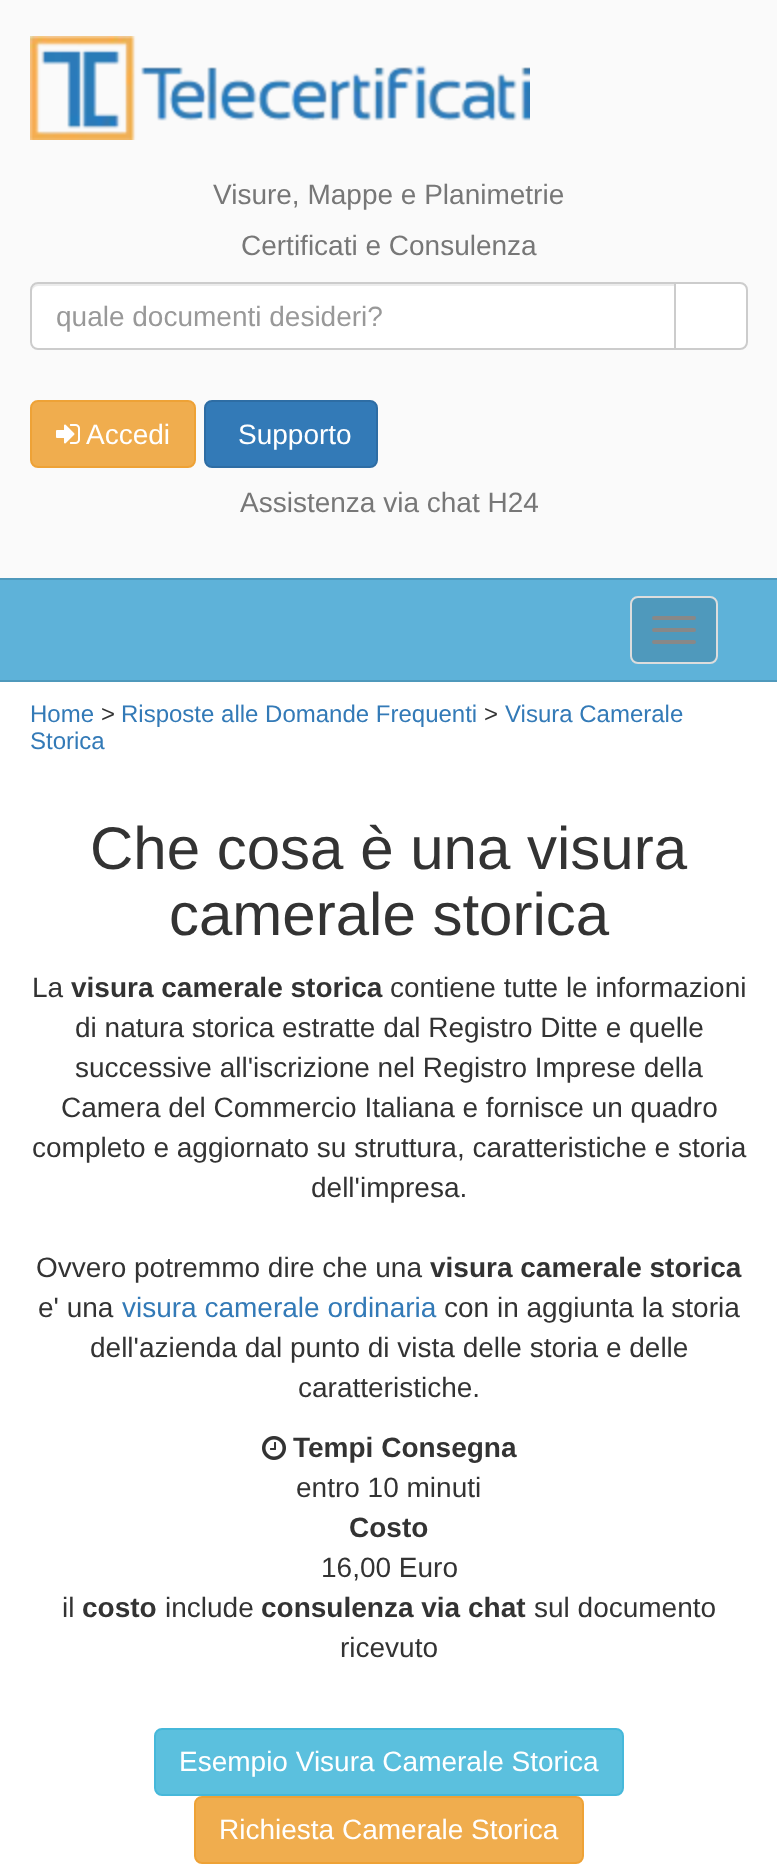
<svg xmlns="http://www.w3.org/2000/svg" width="777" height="1865">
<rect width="100%" height="100%" fill="#fff"/>
<rect width="777" height="578" fill="#fafafa"/>
<image x="30" y="36" width="500" height="104" href="media/1.png"/>
<text x="213" y="204" style="font-family:Liberation Sans;font-size:28px;fill:#777">Visure, Mappe e Planimetrie</text>
<text x="241" y="255" style="font-family:Liberation Sans;font-size:28px;fill:#777">Certificati e Consulenza</text>
<path d="M675 283h65c4 0 7 3 7 7v52c0 4-3 7-7 7h-65z" fill="#fff" stroke="#ccc" stroke-width="2"/>
<path d="M38 282h638v68h-638c-4.5 0-8-3.5-8-8v-52c0-4.5 3.5-8 8-8z" fill="#fff"/>
<path d="M38 286h636v-2h-636c-5 0-6 4-6 8c0-3 3-6 6-6z" fill="#ececec"/>
<path d="M38 283h637v66h-637c-4 0-7-3-7-7v-52c0-4 3-7 7-7z" fill="none" stroke="#ccc" stroke-width="2"/>
<text x="56" y="326" style="font-family:Liberation Sans;font-size:28px;fill:#999">quale documenti desideri?</text>
<rect x="31" y="401" width="164" height="66" rx="7" fill="#f0ad4e" stroke="#eea236" stroke-width="2"/>
<image x="56" y="424" width="24" height="20" href="media/2.png"/>
<text x="86" y="444" style="font-family:Liberation Sans;font-size:28px;fill:#fff">Accedi</text>
<rect x="205" y="401" width="172" height="66" rx="7" fill="#337ab7" stroke="#2e6da4" stroke-width="2"/>
<text x="238" y="444" style="font-family:Liberation Sans;font-size:28px;fill:#fff">Supporto</text>
<text x="240" y="512" style="font-family:Liberation Sans;font-size:28px;fill:#777">Assistenza via chat H24</text>
<rect y="580" width="777" height="100" fill="#5eb2d9"/>
<rect y="578" width="777" height="2" fill="#4f99bc"/>
<rect y="680" width="777" height="2" fill="#4f99bc"/>
<rect x="631" y="597" width="86" height="66" rx="7" fill="#4f99bc" stroke="#ddd" stroke-width="2"/>
<rect x="652" y="616" width="44" height="4" rx="2" fill="#888"/>
<rect x="652" y="628" width="44" height="4" rx="2" fill="#888"/>
<rect x="652" y="640" width="44" height="4" rx="2" fill="#888"/>
<text x="30" y="722" style="font-family:Liberation Sans;font-size:24px;fill:#337ab7">Home</text>
<text x="101" y="722" style="font-family:Liberation Sans;font-size:24px;fill:#333">&gt;</text>
<text x="121" y="722" style="font-family:Liberation Sans;font-size:24px;fill:#337ab7">Risposte alle Domande Frequenti</text>
<text x="484" y="722" style="font-family:Liberation Sans;font-size:24px;fill:#333">&gt;</text>
<text x="505" y="722" style="font-family:Liberation Sans;font-size:24px;fill:#337ab7">Visura Camerale</text>
<text x="30" y="749" style="font-family:Liberation Sans;font-size:24px;fill:#337ab7">Storica</text>
<text x="90" y="869" style="font-family:Liberation Sans;font-size:60px;fill:#333">Che cosa è una visura</text>
<text x="169" y="935" style="font-family:Liberation Sans;font-size:60px;fill:#333">camerale storica</text>
<text x="32" y="997" style="font-family:Liberation Sans;font-size:28px;fill:#333">La</text>
<text x="71" y="997" style="font-family:Liberation Sans;font-size:28px;font-weight:bold;fill:#333">visura camerale storica</text>
<text x="390" y="997" style="font-family:Liberation Sans;font-size:28px;fill:#333">contiene tutte le informazioni</text>
<text x="75" y="1037" style="font-family:Liberation Sans;font-size:28px;fill:#333">di natura storica estratte dal Registro Ditte e quelle</text>
<text x="75" y="1077" style="font-family:Liberation Sans;font-size:28px;fill:#333">successive all'iscrizione nel Registro Imprese della</text>
<text x="61" y="1117" style="font-family:Liberation Sans;font-size:28px;fill:#333">Camera del Commercio Italiana e fornisce un quadro</text>
<text x="32" y="1157" style="font-family:Liberation Sans;font-size:28px;fill:#333">completo e aggiornato su struttura, caratteristiche e storia</text>
<text x="311" y="1197" style="font-family:Liberation Sans;font-size:28px;fill:#333">dell'impresa.</text>
<text x="36" y="1277" style="font-family:Liberation Sans;font-size:28px;fill:#333">Ovvero potremmo dire che una</text>
<text x="430" y="1277" style="font-family:Liberation Sans;font-size:28px;font-weight:bold;fill:#333">visura camerale storica</text>
<text x="38" y="1317" style="font-family:Liberation Sans;font-size:28px;fill:#333">e' una</text>
<text x="122" y="1317" style="font-family:Liberation Sans;font-size:28px;fill:#337ab7">visura camerale ordinaria</text>
<text x="444" y="1317" style="font-family:Liberation Sans;font-size:28px;fill:#333">con in aggiunta la storia</text>
<text x="90" y="1357" style="font-family:Liberation Sans;font-size:28px;fill:#333">dell'azienda dal punto di vista delle storia e delle</text>
<text x="298" y="1397" style="font-family:Liberation Sans;font-size:28px;fill:#333">caratteristiche.</text>
<image x="262" y="1436" width="24" height="24" href="media/3.png"/>
<text x="293" y="1457" style="font-family:Liberation Sans;font-size:28px;font-weight:bold;fill:#333">Tempi Consegna</text>
<text x="296" y="1497" style="font-family:Liberation Sans;font-size:28px;fill:#333">entro 10 minuti</text>
<text x="349" y="1537" style="font-family:Liberation Sans;font-size:28px;font-weight:bold;fill:#333">Costo</text>
<text x="321" y="1577" style="font-family:Liberation Sans;font-size:28px;fill:#333">16,00 Euro</text>
<text x="62" y="1617" style="font-family:Liberation Sans;font-size:28px;fill:#333">il</text>
<text x="82" y="1617" style="font-family:Liberation Sans;font-size:28px;font-weight:bold;fill:#333">costo</text>
<text x="165" y="1617" style="font-family:Liberation Sans;font-size:28px;fill:#333">include</text>
<text x="261" y="1617" style="font-family:Liberation Sans;font-size:28px;font-weight:bold;fill:#333">consulenza via chat</text>
<text x="534" y="1617" style="font-family:Liberation Sans;font-size:28px;fill:#333">sul documento</text>
<text x="340" y="1657" style="font-family:Liberation Sans;font-size:28px;fill:#333">ricevuto</text>
<rect x="155" y="1729" width="468" height="66" rx="7" fill="#5bc0de" stroke="#46b8da" stroke-width="2"/>
<text x="179" y="1771" style="font-family:Liberation Sans;font-size:28px;fill:#fff">Esempio Visura Camerale Storica</text>
<rect x="195" y="1797" width="388" height="66" rx="7" fill="#f0ad4e" stroke="#eea236" stroke-width="2"/>
<text x="219" y="1839" style="font-family:Liberation Sans;font-size:28px;fill:#fff">Richiesta Camerale Storica</text>
</svg>
